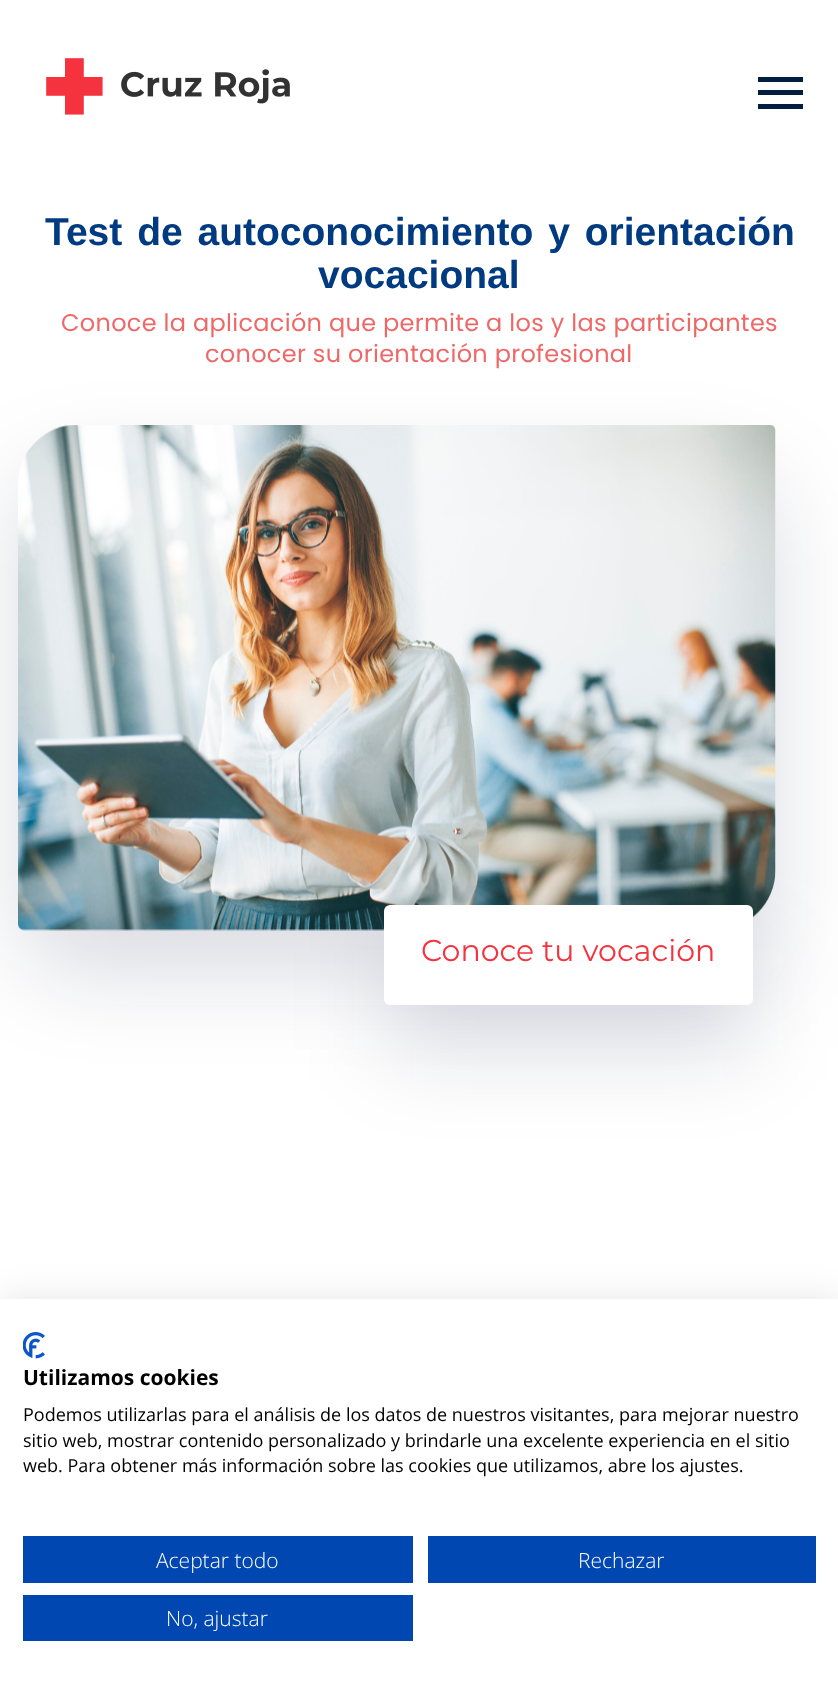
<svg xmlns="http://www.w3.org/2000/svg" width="838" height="1681">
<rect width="100%" height="100%" fill="#fff"/>
<image x="46" y="58" width="244" height="57" href="media/1.png"/>
<rect x="758" y="77" width="45" height="5" fill="#011e41"/>
<rect x="758" y="90" width="45" height="5" fill="#011e41"/>
<rect x="758" y="104" width="45" height="5" fill="#011e41"/>
<text x="45" y="245" word-spacing="4" style="font-family:Liberation Sans;font-size:39px;font-weight:bold;fill:#003a81">Test de autoconocimiento y orientación</text>
<text x="318" y="288" style="font-family:Liberation Sans;font-size:39px;font-weight:bold;fill:#003a81">vocacional</text>
<text x="61" y="331" style="font-family:Poppins;font-size:24px;letter-spacing:0.3px;fill:#ef6868">Conoce la aplicación que permite a los y las participantes</text>
<text x="205" y="362" style="font-family:Poppins;font-size:24px;letter-spacing:0.3px;fill:#ef6868">conocer su orientación profesional</text>
<rect x="18" y="470" width="758" height="505" rx="60" fill="#010b3c24" filter="blur(45px)"/>
<image x="18" y="425" width="758" height="506" href="media/2.png"/>
<rect x="384" y="950" width="369" height="100" rx="6" fill="#010b3c24" filter="blur(45px)"/>
<rect x="384" y="905" width="369" height="100" rx="6" fill="#fff"/>
<text x="421" y="961" style="font-family:Montserrat;font-size:30px;fill:#f5333f">Conoce tu vocación</text>
<rect y="1299" width="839" height="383" fill="#0000001a" filter="blur(18px)"/>
<rect y="1299" width="838" height="382" fill="#fff"/>
<image x="23" y="1332" width="22" height="27" href="media/3.png"/>
<text x="23" y="1385" style="font-family:Open Sans;font-size:21px;font-weight:bold;fill:#000">Utilizamos cookies</text>
<text x="23" y="1421" style="font-family:Open Sans;font-size:18px;fill:#000">Podemos utilizarlas para el análisis de los datos de nuestros visitantes, para mejorar nuestro</text>
<text x="23" y="1447" style="font-family:Open Sans;font-size:18px;fill:#000">sitio web, mostrar contenido personalizado y brindarle una excelente experiencia en el sitio</text>
<text x="23" y="1472" style="font-family:Open Sans;font-size:18px;fill:#000">web. Para obtener más información sobre las cookies que utilizamos, abre los ajustes.</text>
<rect x="23" y="1536" width="390" height="47" fill="#0047b2"/>
<text x="156" y="1568" style="font-family:Open Sans;font-size:21px;font-weight:300;fill:#fff">Aceptar todo</text>
<rect x="428" y="1536" width="388" height="47" fill="#0047b2"/>
<text x="578" y="1568" style="font-family:Open Sans;font-size:21px;font-weight:300;fill:#fff">Rechazar</text>
<rect x="23" y="1595" width="390" height="46" fill="#0047b2"/>
<text x="166" y="1626" style="font-family:Open Sans;font-size:21px;font-weight:300;fill:#fff">No, ajustar</text>
</svg>
